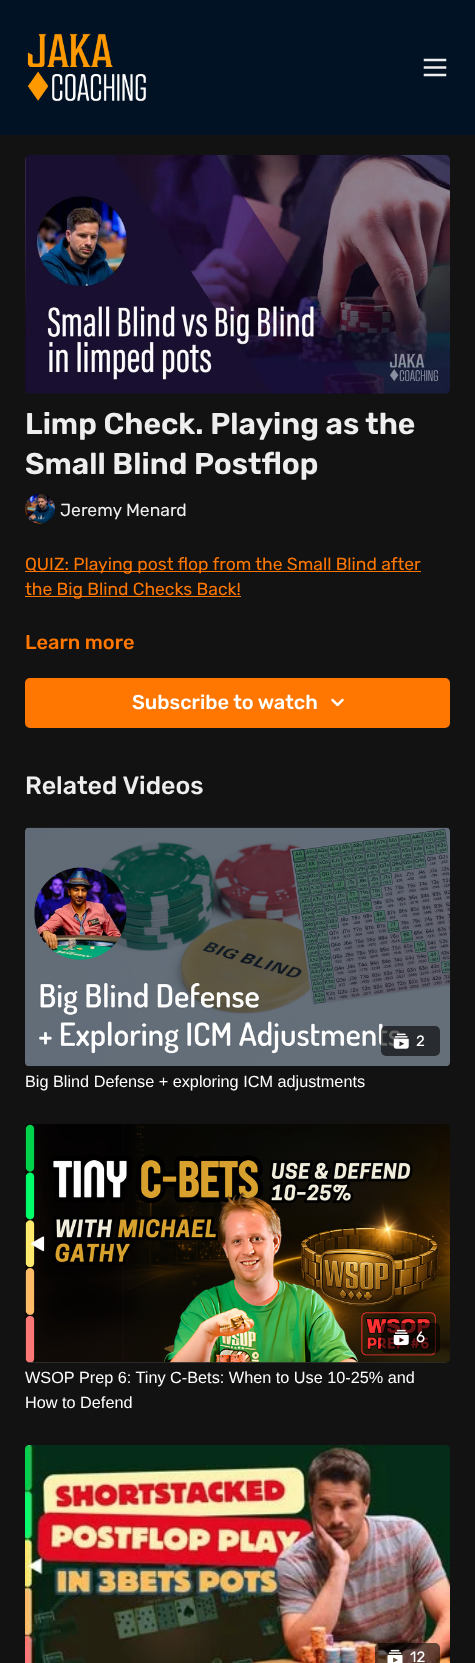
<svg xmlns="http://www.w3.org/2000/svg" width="475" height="1663">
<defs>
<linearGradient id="g1" gradientUnits="userSpaceOnUse" x1="25" y1="1243" x2="450" y2="1243"><stop offset="0.08" stop-color="#313131"/><stop offset="0.18" stop-color="#2e2e2e"/><stop offset="0.33" stop-color="#2c2c2c"/></linearGradient>
</defs>
<rect width="100%" height="100%" fill="#121212"/>
<rect width="475" height="135" fill="#011225"/>
<image x="27" y="33" width="120" height="69" href="media/1.png"/>
<image x="423" y="58" width="24" height="19" href="media/2.png"/>
<image x="25" y="155" width="425" height="239" href="media/3.png"/>
<text x="25" y="434" style="font-family:Rubik;font-size:30px;font-weight:600;fill:#eee">Limp Check. Playing as the</text>
<text x="25" y="474" style="font-family:Rubik;font-size:30px;font-weight:600;fill:#eee">Small Blind Postflop</text>
<image x="25" y="494" width="30" height="30" href="media/4.png"/>
<text x="60" y="516" style="font-family:Rubik;font-size:17.5px;fill:#eee">Jeremy Menard</text>
<rect x="25" y="571" width="396" height="1" fill="#f70"/>
<text x="25" y="570" style="font-family:Rubik;font-size:17.5px;fill:#f70">QUIZ: Playing post flop from the Small Blind after</text>
<rect x="25" y="596" width="216" height="1" fill="#f70"/>
<text x="25" y="595" style="font-family:Rubik;font-size:17.5px;fill:#f70">the Big Blind Checks Back!</text>
<text x="25" y="649" style="font-family:Rubik;font-size:20px;font-weight:500;fill:#f70">Learn more</text>
<rect x="25" y="678" width="425" height="50" rx="5" fill="#f70"/>
<text x="132" y="709" style="font-family:Rubik;font-size:20px;font-weight:500;fill:#fff">Subscribe to watch</text>
<image x="331" y="698" width="13" height="9" href="media/5.png"/>
<text x="25" y="794" style="font-family:Rubik;font-size:25px;font-weight:500;fill:#eee">Related Videos</text>
<image x="25" y="827" width="425" height="239" href="media/6.png"/>
<rect x="381" y="1026" width="59" height="30" rx="5" fill="#00000099"/>
<image x="393" y="1033" width="16" height="16" href="media/7.png"/>
<text x="416" y="1046" style="font-family:Rubik;font-size:15px;fill:#fff">2</text>
<text x="25" y="1087" style="font-family:Liberation Sans;font-size:16.25px;fill:#fff">Big Blind Defense + exploring ICM adjustments</text>
<rect x="25" y="1124" width="425" height="239" rx="5" fill="url(#g1)"/>
<image x="25" y="1124" width="425" height="239" href="media/8.png"/>
<rect x="381" y="1323" width="59" height="30" rx="5" fill="#00000099"/>
<image x="393" y="1329" width="16" height="16" href="media/9.png"/>
<text x="416" y="1342" style="font-family:Rubik;font-size:15px;fill:#fff">6</text>
<text x="25" y="1383" style="font-family:Liberation Sans;font-size:16.25px;fill:#fff">WSOP Prep 6: Tiny C-Bets: When to Use 10-25% and</text>
<text x="25" y="1408" style="font-family:Liberation Sans;font-size:16.25px;fill:#fff">How to Defend</text>
<image x="25" y="1445" width="425" height="218" href="media/10.png"/>
<rect x="375" y="1643" width="65" height="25" rx="5" fill="#00000099"/>
<image x="387" y="1649" width="16" height="14" href="media/11.png"/>
<text x="410" y="1662" style="font-family:Rubik;font-size:15px;fill:#fff">12</text>
</svg>
